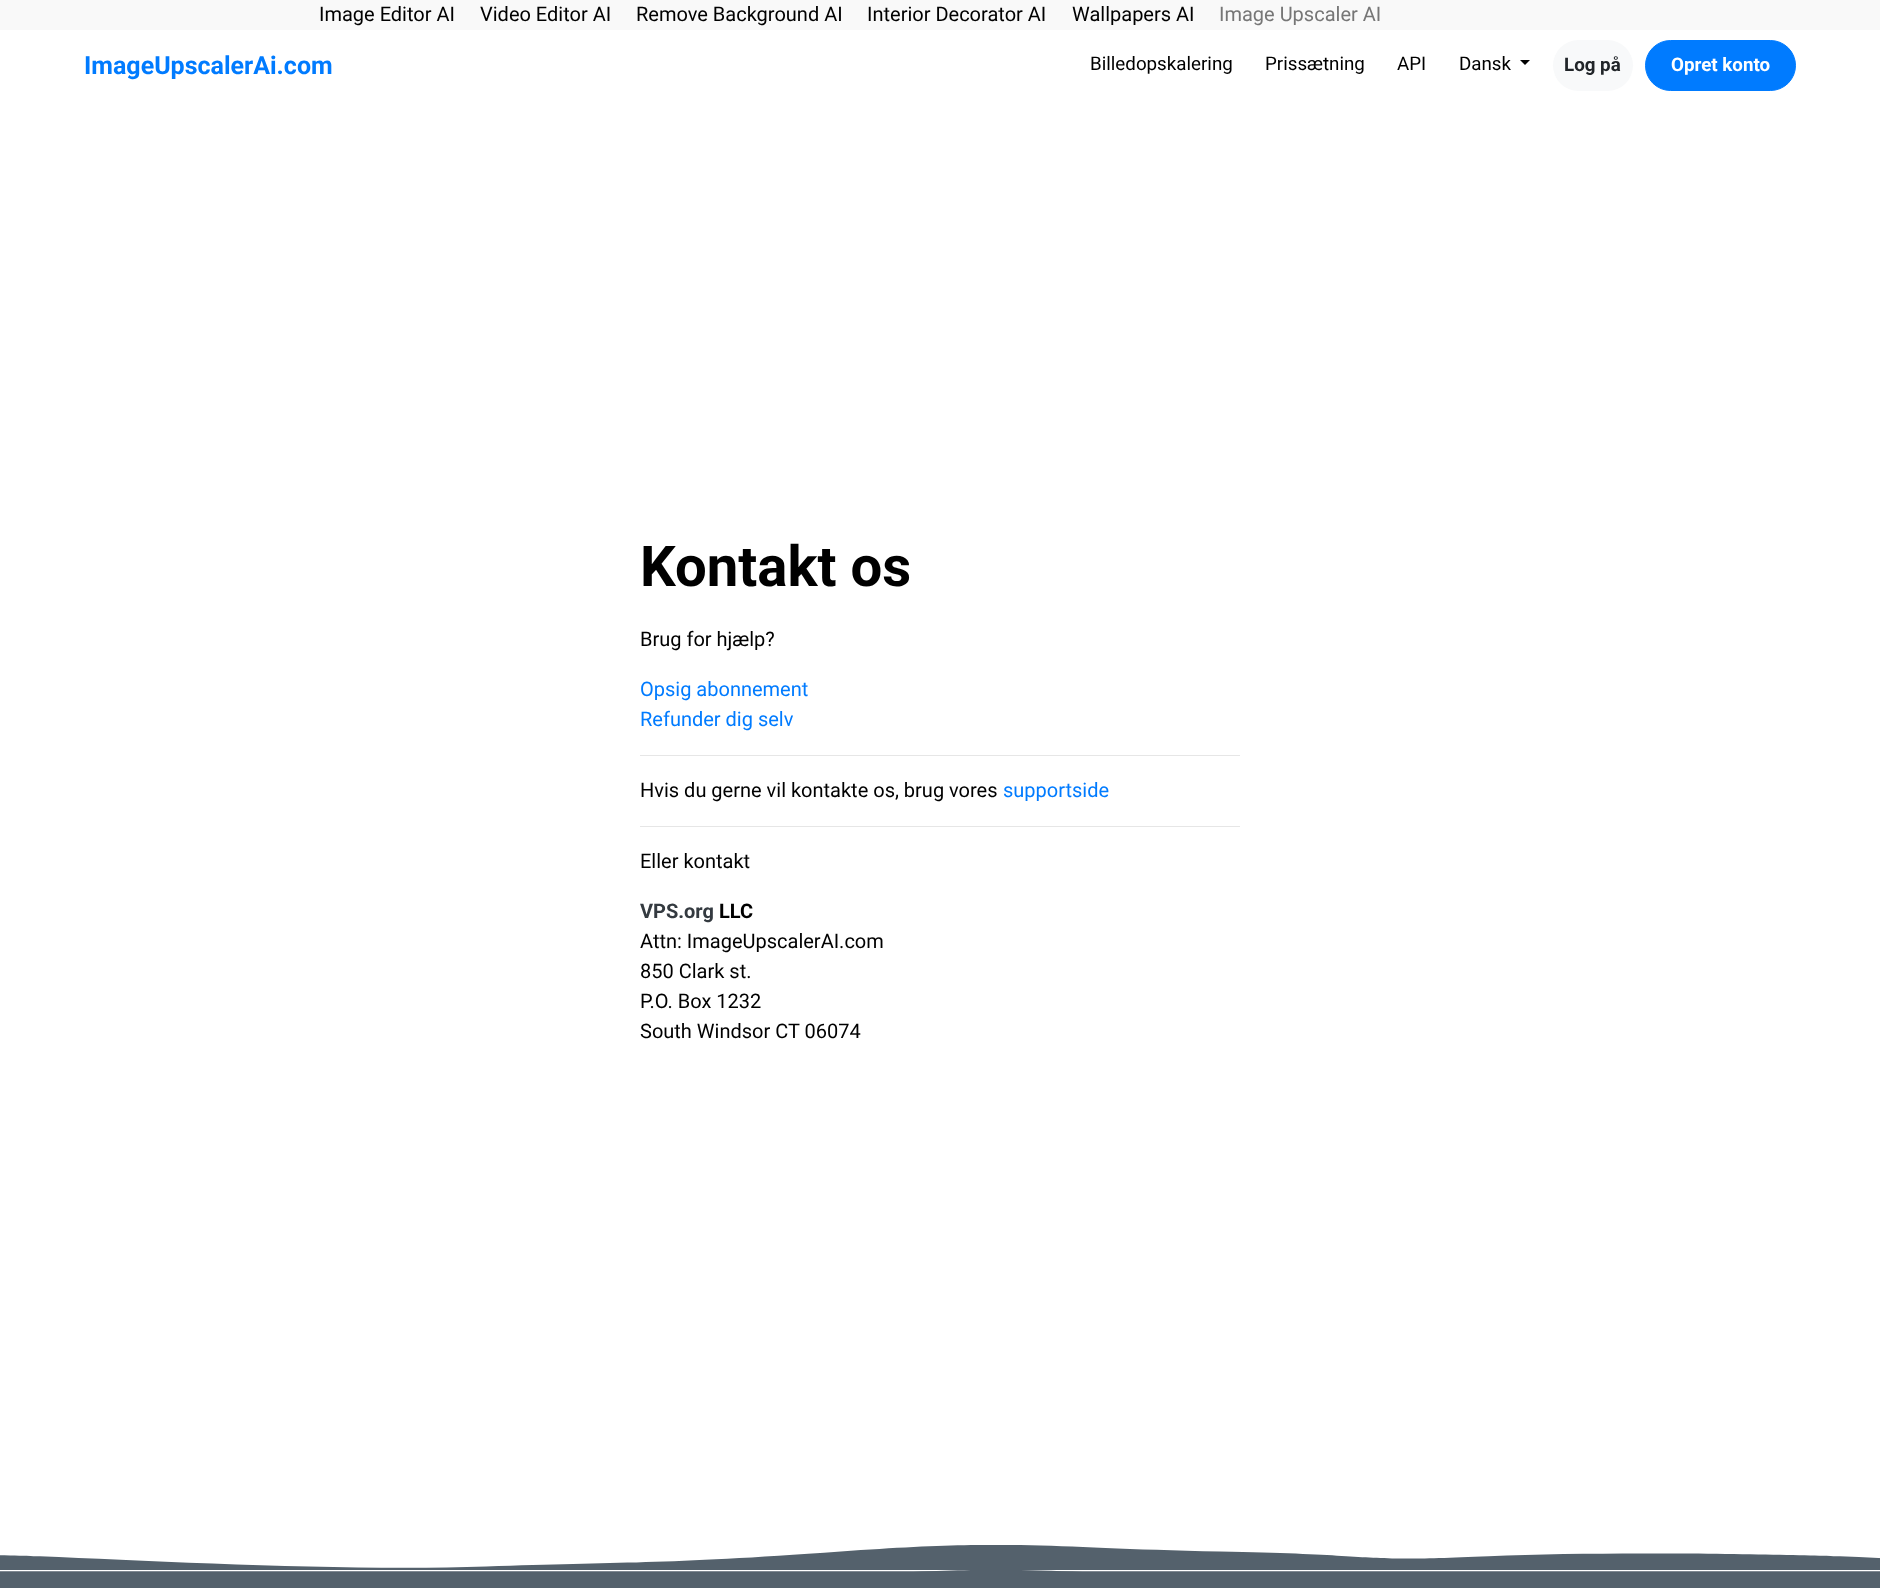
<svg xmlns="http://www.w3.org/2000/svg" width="1880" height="1588">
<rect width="100%" height="100%" fill="#fff"/>
<rect width="1880" height="30" fill="#f9f9f9"/>
<text x="319" y="21" style="font-family:Roboto;font-size:20px;fill:#000">Image Editor AI</text>
<text x="480" y="21" style="font-family:Roboto;font-size:20px;fill:#000">Video Editor AI</text>
<text x="636" y="21" style="font-family:Roboto;font-size:20px;fill:#000">Remove Background AI</text>
<text x="867" y="21" style="font-family:Roboto;font-size:20px;fill:#000">Interior Decorator AI</text>
<text x="1072" y="21" style="font-family:Roboto;font-size:20px;fill:#000">Wallpapers AI</text>
<text x="1219" y="21" style="font-family:Roboto;font-size:20px;fill:#767676">Image Upscaler AI</text>
<text x="84" y="74" style="font-family:Roboto;font-size:25px;font-weight:bold;fill:#007bff">ImageUpscalerAi.com</text>
<text x="1090" y="70" style="font-family:Roboto;font-size:18.75px;fill:#000">Billedopskalering</text>
<text x="1265" y="70" style="font-family:Roboto;font-size:18.75px;fill:#000">Prissætning</text>
<text x="1397" y="70" style="font-family:Roboto;font-size:18.75px;fill:#000">API</text>
<text x="1459" y="70" style="font-family:Roboto;font-size:18.75px;fill:#000">Dansk</text>
<path d="M1520 60h10l-5 5z" fill="#000"/>
<rect x="1553" y="40" width="80" height="51" rx="25.5" fill="#f8f9fa"/>
<text x="1564" y="71" style="font-family:Roboto;font-size:18.75px;font-weight:bold;fill:#212529">Log på</text>
<rect x="1645.5" y="40.5" width="150" height="50" rx="25" fill="#007bff" stroke="#007bff"/>
<text x="1671" y="71" style="font-family:Roboto;font-size:18.75px;font-weight:bold;fill:#fff">Opret konto</text>
<text x="640" y="586" style="font-family:Roboto;font-size:56.25px;font-weight:bold;fill:#000">Kontakt os</text>
<text x="640" y="646" style="font-family:Roboto;font-size:20px;fill:#000">Brug for hjælp?</text>
<text x="640" y="696" style="font-family:Roboto;font-size:20px;fill:#007bff">Opsig abonnement</text>
<text x="640" y="726" style="font-family:Roboto;font-size:20px;fill:#007bff">Refunder dig selv</text>
<rect x="640" y="755" width="600" height="1" fill="#e6e6e6"/>
<text x="640" y="797" style="font-family:Roboto;font-size:20px;fill:#000">Hvis du gerne vil kontakte os, brug vores</text>
<text x="1003" y="797" style="font-family:Roboto;font-size:20px;fill:#007bff">supportside</text>
<rect x="640" y="826" width="600" height="1" fill="#e6e6e6"/>
<text x="640" y="868" style="font-family:Roboto;font-size:20px;fill:#000">Eller kontakt</text>
<text x="640" y="918" style="font-family:Roboto;font-size:20px;font-weight:bold;fill:#343a40">VPS.org</text>
<text x="719" y="918" style="font-family:Roboto;font-size:20px;font-weight:bold;fill:#000">LLC</text>
<text x="640" y="948" style="font-family:Roboto;font-size:20px;fill:#000">Attn: ImageUpscalerAI.com</text>
<text x="640" y="978" style="font-family:Roboto;font-size:20px;fill:#000">850 Clark st.</text>
<text x="640" y="1008" style="font-family:Roboto;font-size:20px;fill:#000">P.O. Box 1232</text>
<text x="640" y="1038" style="font-family:Roboto;font-size:20px;fill:#000">South Windsor CT 06074</text>
<rect y="1545" width="1880" height="43" fill="#54616c"/>
<image x="0" y="1545" width="1880" height="27" href="media/1.png"/>
</svg>
